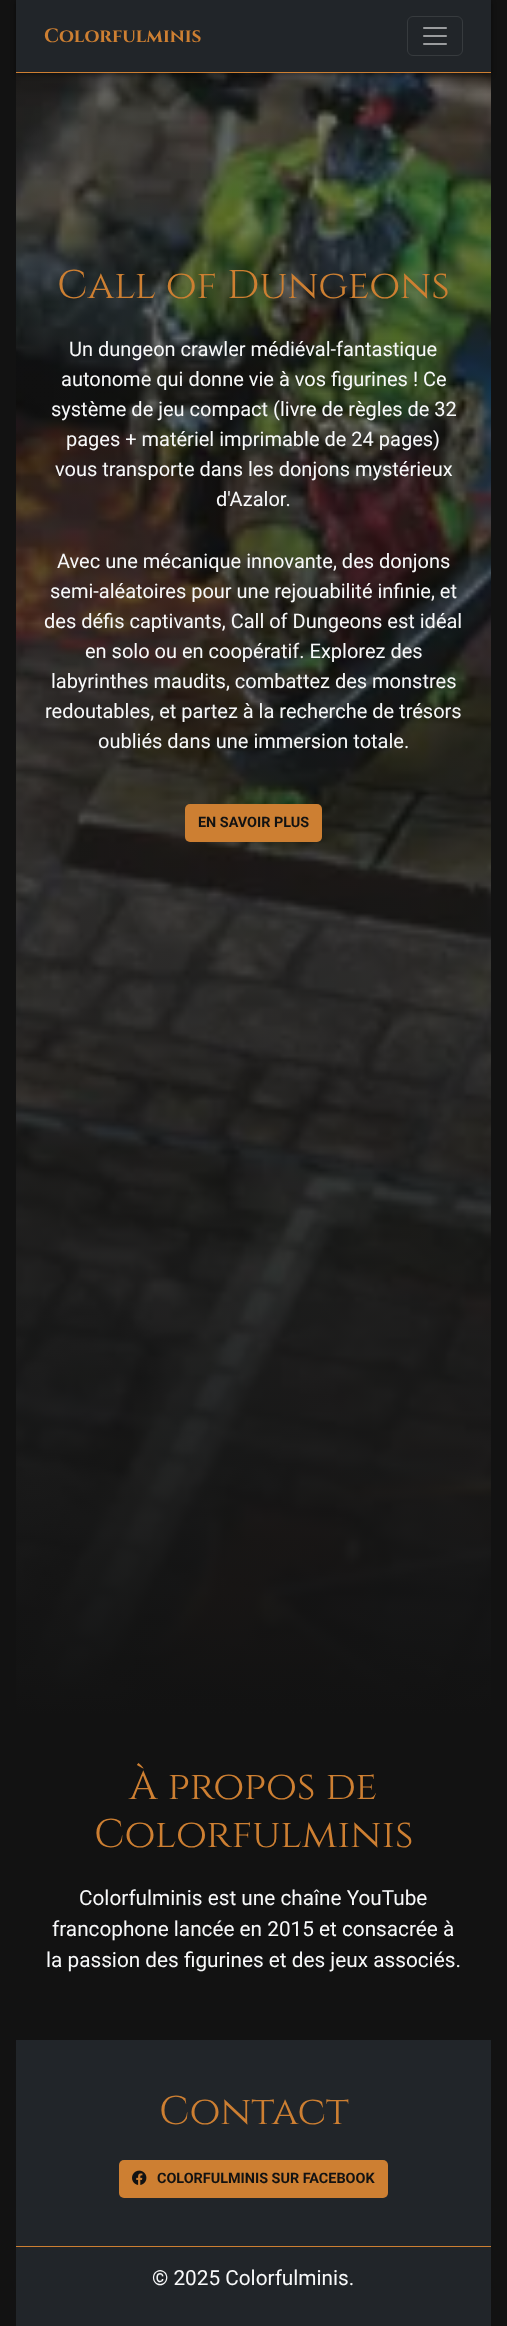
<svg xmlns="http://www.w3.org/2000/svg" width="507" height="2326">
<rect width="100%" height="100%" fill="#121212"/>
<image x="16" y="73" width="475" height="1642" href="media/2.png"/>
<rect x="16" y="2" width="475" height="73" fill="#00000080" filter="blur(2.5px)"/>
<rect x="16" width="475" height="72" fill="#212529"/>
<rect x="16" y="72" width="475" height="1" fill="#cd7f32"/>
<text x="44" y="42" style="font-family:Cinzel;font-size:19.25px;font-weight:bold;fill:#cd7f32">Colorfulminis</text>
<rect x="407.5" y="16.5" width="55" height="39" rx="5.5" fill="none" stroke="#373b3e"/>
<image x="423" y="27" width="24" height="18" href="media/1.png"/>
<text x="57" y="298" style="font-family:Cinzel;font-size:40px;fill:#cd7f32">Call of Dungeons</text>
<text x="69" y="356" style="font-family:Roboto;font-size:20px;fill:#f8f9fa">Un dungeon crawler médiéval-fantastique</text>
<text x="61" y="386" style="font-family:Roboto;font-size:20px;fill:#f8f9fa">autonome qui donne vie à vos figurines ! Ce</text>
<text x="51" y="416" style="font-family:Roboto;font-size:20px;fill:#f8f9fa">système de jeu compact (livre de règles de 32</text>
<text x="66" y="446" style="font-family:Roboto;font-size:20px;fill:#f8f9fa">pages + matériel imprimable de 24 pages)</text>
<text x="55" y="476" style="font-family:Roboto;font-size:20px;fill:#f8f9fa">vous transporte dans les donjons mystérieux</text>
<text x="216" y="506" style="font-family:Roboto;font-size:20px;fill:#f8f9fa">d'Azalor.</text>
<text x="57" y="568" style="font-family:Roboto;font-size:20px;fill:#f8f9fa">Avec une mécanique innovante, des donjons</text>
<text x="50" y="598" style="font-family:Roboto;font-size:20px;fill:#f8f9fa">semi-aléatoires pour une rejouabilité infinie, et</text>
<text x="44" y="628" style="font-family:Roboto;font-size:20px;fill:#f8f9fa">des défis captivants, Call of Dungeons est idéal</text>
<text x="85" y="658" style="font-family:Roboto;font-size:20px;fill:#f8f9fa">en solo ou en coopératif. Explorez des</text>
<text x="51" y="688" style="font-family:Roboto;font-size:20px;fill:#f8f9fa">labyrinthes maudits, combattez des monstres</text>
<text x="45" y="718" style="font-family:Roboto;font-size:20px;fill:#f8f9fa">redoutables, et partez à la recherche de trésors</text>
<text x="98" y="748" style="font-family:Roboto;font-size:20px;fill:#f8f9fa">oubliés dans une immersion totale.</text>
<rect x="185" y="804" width="137" height="38" rx="5" fill="#cd7f32"/>
<text x="198" y="827" style="font-family:Roboto;font-size:14.4px;font-weight:bold;fill:#121212">EN SAVOIR PLUS</text>
<text x="129" y="1799" style="font-family:Cinzel;font-size:40px;fill:#cd7f32">À propos de</text>
<text x="94" y="1847" style="font-family:Cinzel;font-size:40px;fill:#cd7f32">Colorfulminis</text>
<text x="79" y="1905" style="font-family:Roboto;font-size:20.75px;fill:#f8f9fa">Colorfulminis est une chaîne YouTube</text>
<text x="52" y="1936" style="font-family:Roboto;font-size:20.75px;fill:#f8f9fa">francophone lancée en 2015 et consacrée à</text>
<text x="46" y="1967" style="font-family:Roboto;font-size:20.75px;fill:#f8f9fa">la passion des figurines et des jeux associés.</text>
<rect x="16" y="2040" width="475" height="206" fill="#212529"/>
<text x="159" y="2124" style="font-family:Cinzel;font-size:40px;fill:#cd7f32">Contact</text>
<rect x="119" y="2160" width="269" height="38" rx="5" fill="#cd7f32"/>
<image x="132" y="2170" width="15" height="15" href="media/3.png"/>
<text x="157" y="2183" style="font-family:Roboto;font-size:14.4px;font-weight:bold;fill:#121212">COLORFULMINIS SUR FACEBOOK</text>
<rect x="16" y="2247" width="475" height="79" fill="#212529"/>
<rect x="16" y="2246" width="475" height="1" fill="#cd7f32"/>
<text x="152" y="2285" style="font-family:Roboto;font-size:20.75px;fill:#f8f9fa">© 2025 Colorfulminis.</text>
</svg>
